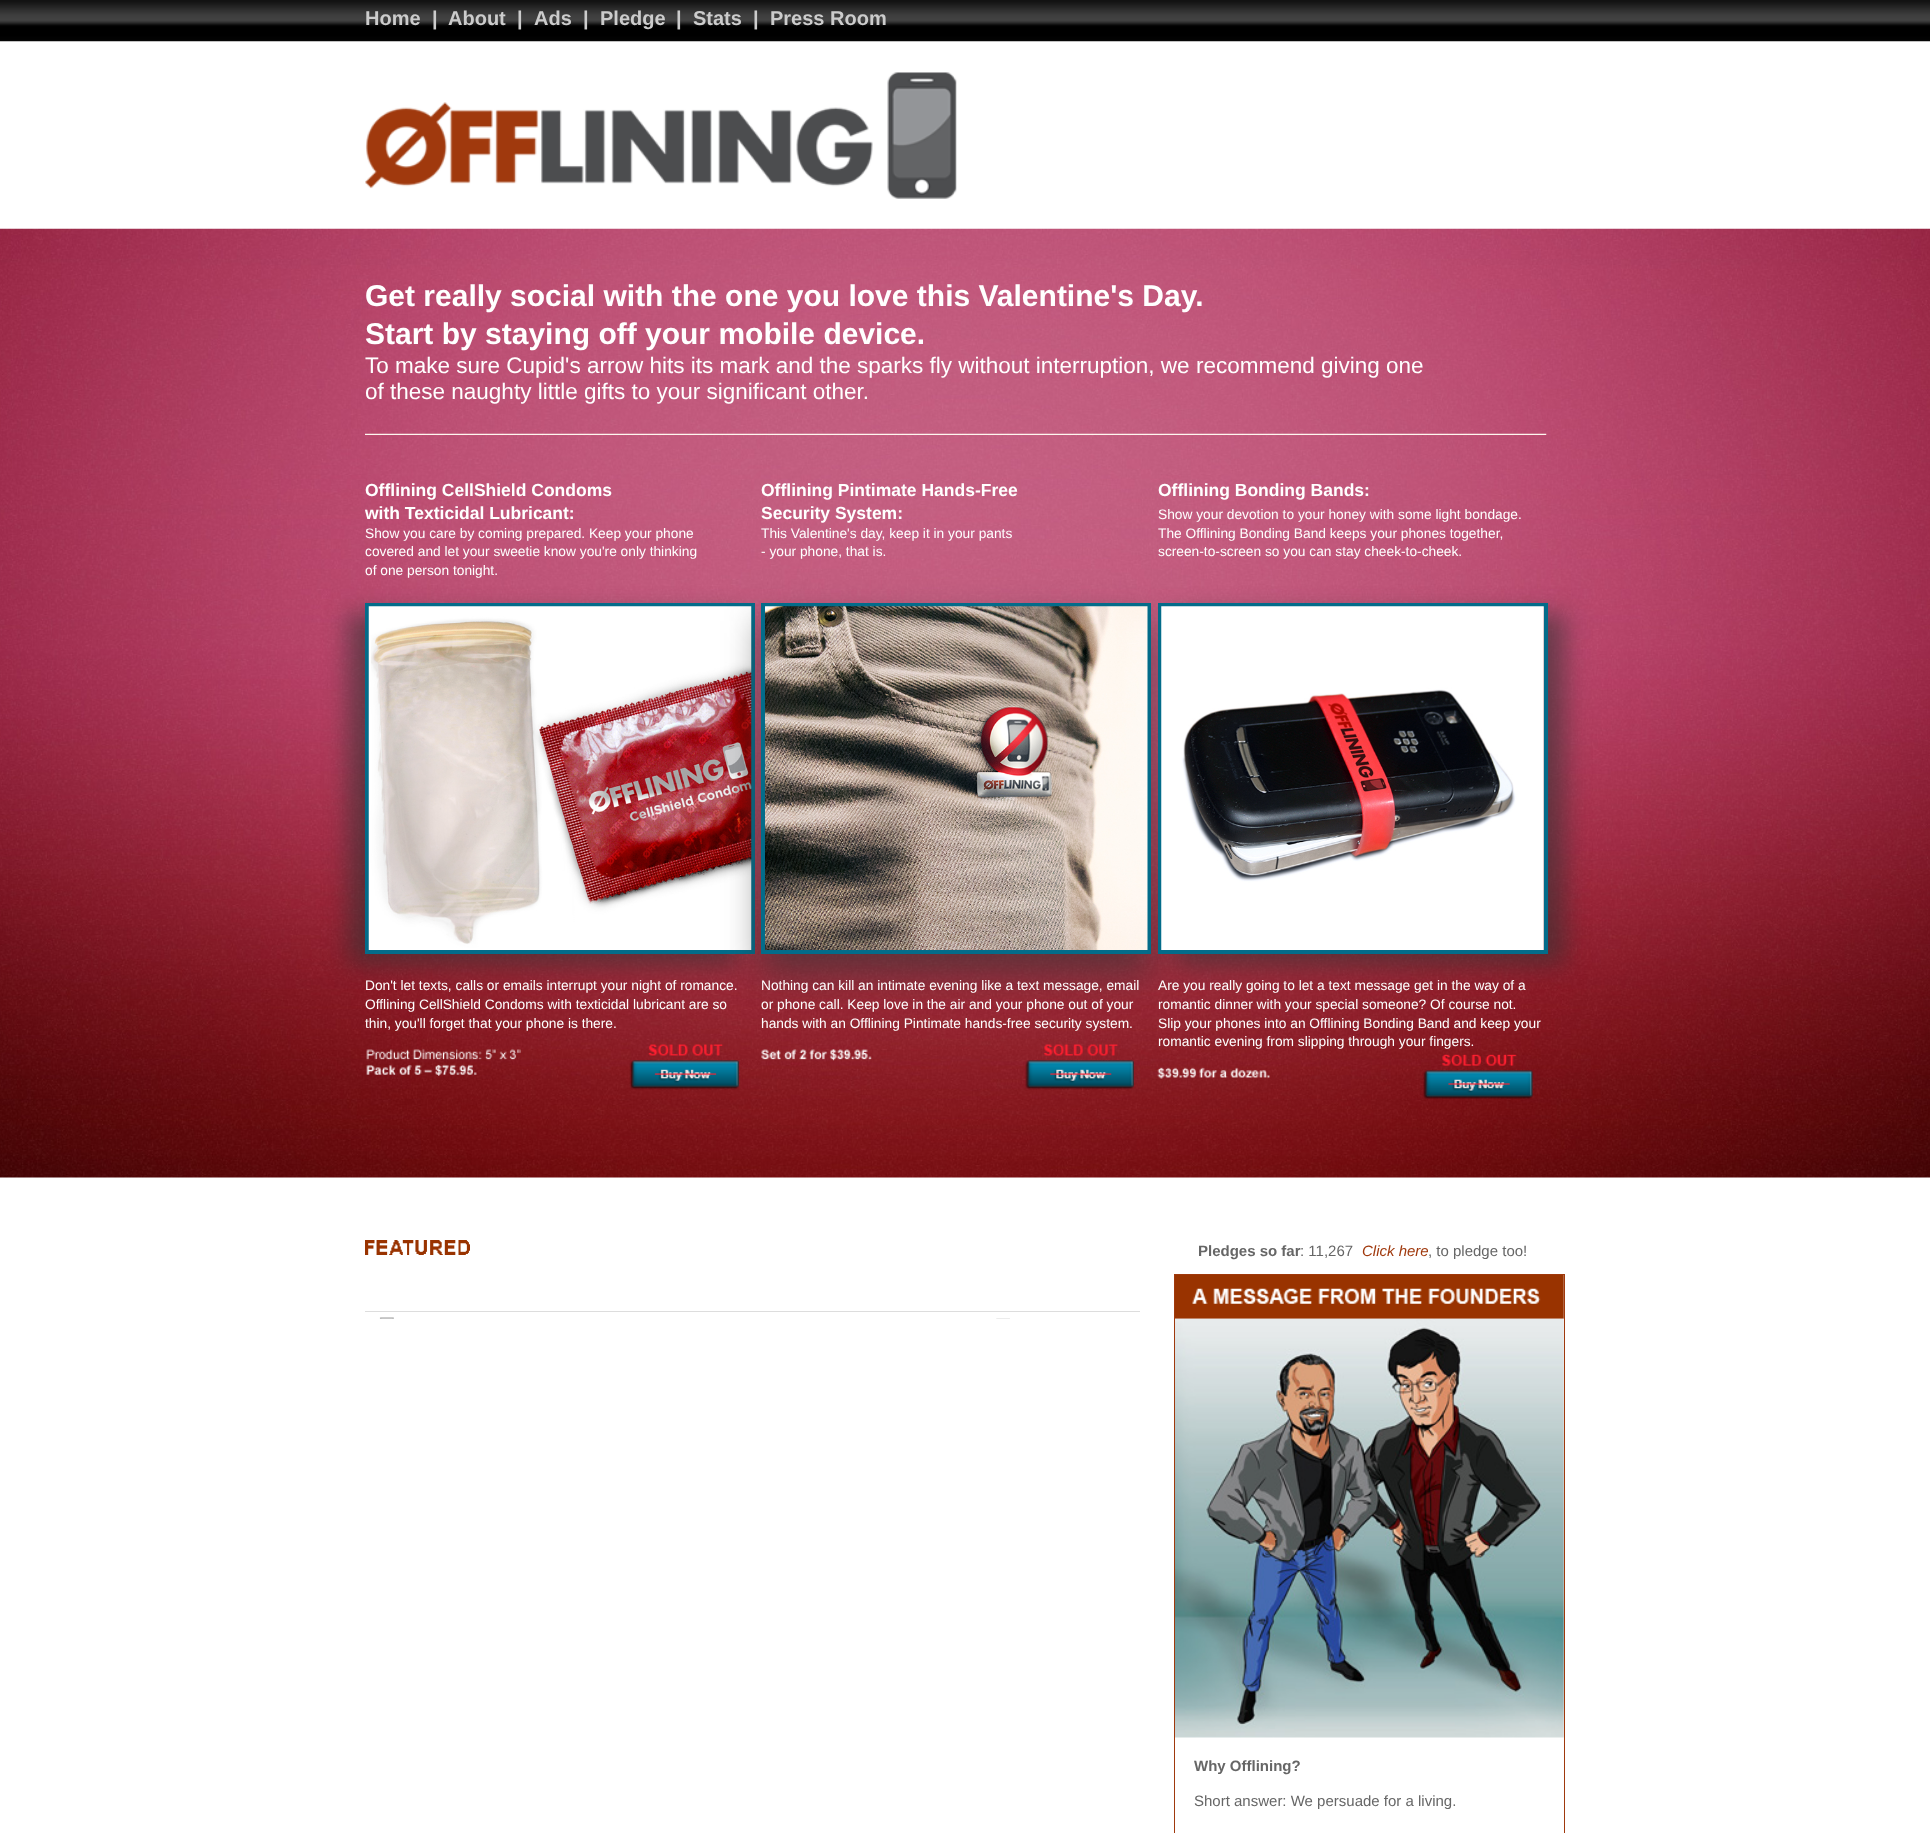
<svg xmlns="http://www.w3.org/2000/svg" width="1930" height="1833">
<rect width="100%" height="100%" fill="#fff"/>
<image x="0" y="0" width="1930" height="42" href="media/1.png"/>
<text x="365" y="25" style="font-family:Liberation Sans;font-size:20px;font-weight:bold;fill:#ccc">Home</text>
<text x="432" y="25" style="font-family:Liberation Sans;font-size:20px;font-weight:bold;fill:#ccc">|</text>
<text x="448" y="25" style="font-family:Liberation Sans;font-size:20px;font-weight:bold;fill:#ccc">About</text>
<text x="517" y="25" style="font-family:Liberation Sans;font-size:20px;font-weight:bold;fill:#ccc">|</text>
<text x="534" y="25" style="font-family:Liberation Sans;font-size:20px;font-weight:bold;fill:#ccc">Ads</text>
<text x="583" y="25" style="font-family:Liberation Sans;font-size:20px;font-weight:bold;fill:#ccc">|</text>
<text x="600" y="25" style="font-family:Liberation Sans;font-size:20px;font-weight:bold;fill:#ccc">Pledge</text>
<text x="676" y="25" style="font-family:Liberation Sans;font-size:20px;font-weight:bold;fill:#ccc">|</text>
<text x="693" y="25" style="font-family:Liberation Sans;font-size:20px;font-weight:bold;fill:#ccc">Stats</text>
<text x="753" y="25" style="font-family:Liberation Sans;font-size:20px;font-weight:bold;fill:#ccc">|</text>
<text x="770" y="25" style="font-family:Liberation Sans;font-size:20px;font-weight:bold;fill:#ccc">Press Room</text>
<image x="365" y="72" width="592" height="127" href="media/2.png"/>
<image x="0" y="228" width="1930" height="950" href="media/3.png"/>
<text x="365" y="306" style="font-family:Liberation Sans;font-size:30px;font-weight:bold;fill:#fff">Get really social with the one you love this Valentine's Day.</text>
<text x="365" y="344" style="font-family:Liberation Sans;font-size:30px;font-weight:bold;fill:#fff">Start by staying off your mobile device.</text>
<text x="365" y="373" style="font-family:Liberation Sans;font-size:22.5px;fill:#fff">To make sure Cupid's arrow hits its mark and the sparks fly without interruption, we recommend giving one</text>
<text x="365" y="399" style="font-family:Liberation Sans;font-size:22.5px;fill:#fff">of these naughty little gifts to your significant other.</text>
<image x="365" y="433" width="1182" height="2" href="media/4.png"/>
<text x="365" y="496" style="font-family:Liberation Sans;font-size:17.5px;font-weight:bold;fill:#fff">Offlining CellShield Condoms</text>
<text x="365" y="519" style="font-family:Liberation Sans;font-size:17.5px;font-weight:bold;fill:#fff">with Texticidal Lubricant:</text>
<text x="365" y="538" style="font-family:Liberation Sans;font-size:13.75px;fill:#fff">Show you care by coming prepared. Keep your phone</text>
<text x="365" y="556" style="font-family:Liberation Sans;font-size:13.75px;fill:#fff">covered and let your sweetie know you're only thinking</text>
<rect x="348" y="614" width="390" height="351" fill="#32323296" filter="blur(12.5px)"/>
<text x="365" y="575" style="font-family:Liberation Sans;font-size:13.75px;fill:#fff">of one person tonight.</text>
<rect x="367" y="605" width="386" height="347" fill="none" stroke="#036c8a" stroke-width="4"/>
<image x="368" y="606" width="384" height="344" href="media/5.png"/>
<text x="365" y="990" style="font-family:Liberation Sans;font-size:13.75px;fill:#fff">Don't let texts, calls or emails interrupt your night of romance.</text>
<text x="365" y="1009" style="font-family:Liberation Sans;font-size:13.75px;fill:#fff">Offlining CellShield Condoms with texticidal lubricant are so</text>
<text x="365" y="1028" style="font-family:Liberation Sans;font-size:13.75px;fill:#fff">thin, you'll forget that your phone is there.</text>
<image x="366" y="1044" width="373" height="46" href="media/6.png"/>
<text x="761" y="496" style="font-family:Liberation Sans;font-size:17.5px;font-weight:bold;fill:#fff">Offlining Pintimate Hands-Free</text>
<text x="761" y="519" style="font-family:Liberation Sans;font-size:17.5px;font-weight:bold;fill:#fff">Security System:</text>
<text x="761" y="538" style="font-family:Liberation Sans;font-size:13.75px;fill:#fff">This Valentine's day, keep it in your pants</text>
<text x="761" y="556" style="font-family:Liberation Sans;font-size:13.75px;fill:#fff">- your phone, that is.</text>
<rect x="761" y="621" width="390" height="352" fill="#32323296" filter="blur(17.5px)"/>
<rect x="763" y="605" width="386" height="347" fill="none" stroke="#036c8a" stroke-width="4"/>
<image x="765" y="606" width="383" height="344" href="media/7.png"/>
<text x="761" y="990" style="font-family:Liberation Sans;font-size:13.75px;fill:#fff">Nothing can kill an intimate evening like a text message, email</text>
<text x="761" y="1009" style="font-family:Liberation Sans;font-size:13.75px;fill:#fff">or phone call. Keep love in the air and your phone out of your</text>
<text x="761" y="1028" style="font-family:Liberation Sans;font-size:13.75px;fill:#fff">hands with an Offlining Pintimate hands-free security system.</text>
<image x="761" y="1044" width="373" height="46" href="media/8.png"/>
<text x="1158" y="496" style="font-family:Liberation Sans;font-size:17.5px;font-weight:bold;fill:#fff">Offlining Bonding Bands:</text>
<text x="1158" y="519" style="font-family:Liberation Sans;font-size:13.75px;fill:#fff">Show your devotion to your honey with some light bondage.</text>
<text x="1158" y="538" style="font-family:Liberation Sans;font-size:13.75px;fill:#fff">The Offlining Bonding Band keeps your phones together,</text>
<text x="1158" y="556" style="font-family:Liberation Sans;font-size:13.75px;fill:#fff">screen-to-screen so you can stay cheek-to-cheek.</text>
<rect x="1175" y="614" width="390" height="351" fill="#32323296" filter="blur(12.5px)"/>
<rect x="1160" y="605" width="386" height="347" fill="none" stroke="#036c8a" stroke-width="4"/>
<image x="1161" y="606" width="383" height="344" href="media/9.png"/>
<text x="1158" y="990" style="font-family:Liberation Sans;font-size:13.75px;fill:#fff">Are you really going to let a text message get in the way of a</text>
<text x="1158" y="1009" style="font-family:Liberation Sans;font-size:13.75px;fill:#fff">romantic dinner with your special someone? Of course not.</text>
<text x="1158" y="1028" style="font-family:Liberation Sans;font-size:13.75px;fill:#fff">Slip your phones into an Offlining Bonding Band and keep your</text>
<text x="1158" y="1046" style="font-family:Liberation Sans;font-size:13.75px;fill:#fff">romantic evening from slipping through your fingers.</text>
<image x="1157" y="1054" width="376" height="45" href="media/10.png"/>
<image x="365" y="1240" width="105" height="15" href="media/11.png"/>
<text x="1198" y="1256" style="font-family:Liberation Sans;font-size:15px;font-weight:bold;fill:#666">Pledges so far</text>
<text x="1300" y="1256" style="font-family:Liberation Sans;font-size:15px;fill:#666">: 11,267</text>
<text x="1362" y="1256" style="font-family:Liberation Sans;font-size:15px;font-style:italic;fill:#a0390d">Click here</text>
<text x="1428" y="1256" style="font-family:Liberation Sans;font-size:15px;fill:#666">, to pledge too!</text>
<rect x="365" y="1311" width="775" height="1" fill="#ddd"/>
<image x="379" y="1317" width="15" height="2" href="media/12.png"/>
<image x="996" y="1318" width="14" height="1" href="media/13.png"/>
<rect x="1174.5" y="1274.5" width="390" height="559" fill="none" stroke="#a0390d"/>
<image x="1175" y="1275" width="389" height="44" href="media/14.png"/>
<image x="1175" y="1318" width="389" height="420" href="media/15.png"/>
<text x="1194" y="1771" style="font-family:Liberation Sans;font-size:15px;font-weight:bold;fill:#666">Why Offlining?</text>
<text x="1194" y="1806" style="font-family:Liberation Sans;font-size:15px;fill:#666">Short answer: We persuade for a living.</text>
</svg>
